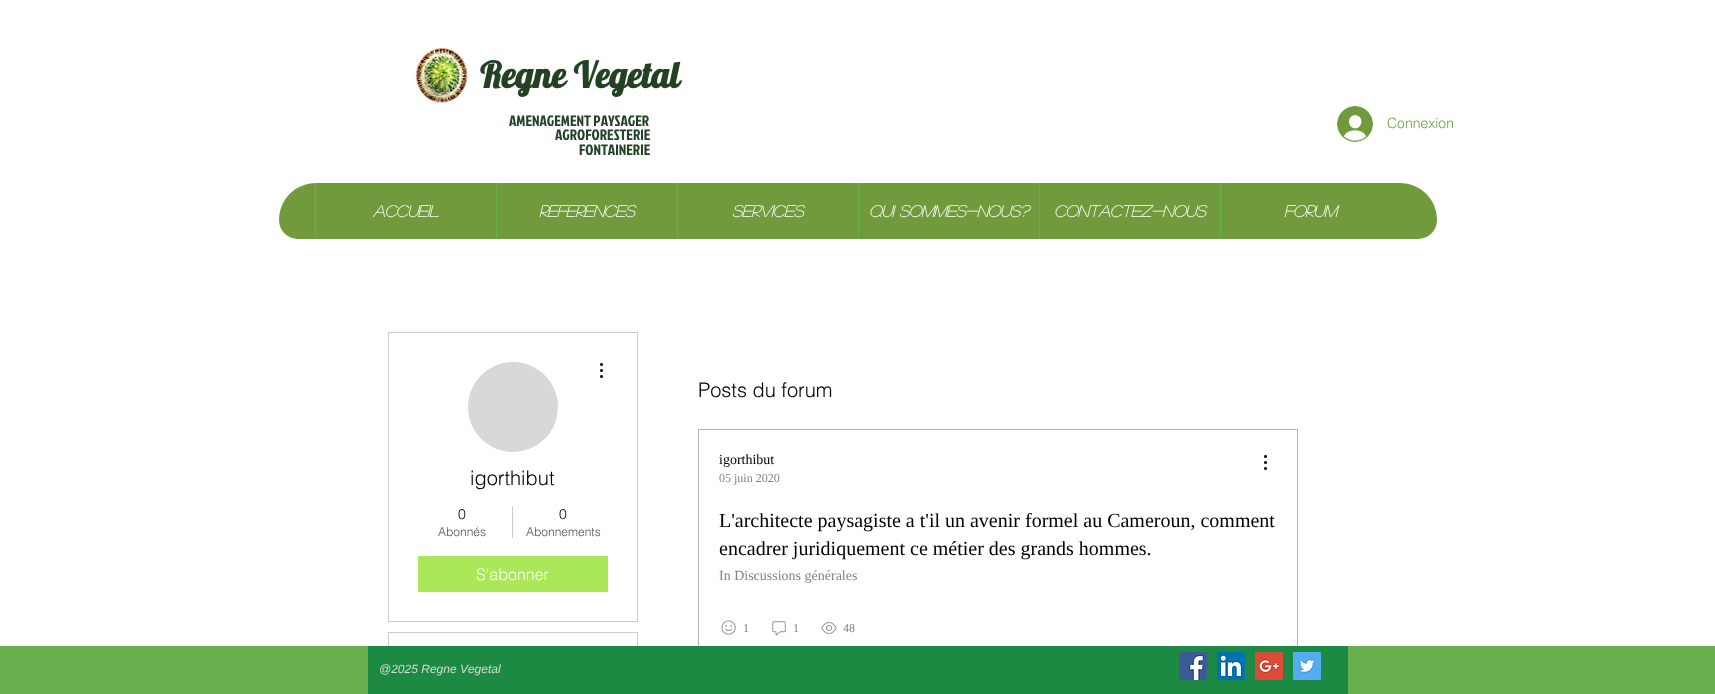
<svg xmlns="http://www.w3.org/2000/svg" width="1715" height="694">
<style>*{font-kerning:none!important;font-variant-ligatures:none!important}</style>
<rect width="100%" height="100%" fill="#fff"/>
<image x="415" y="47" width="53" height="56" href="media/1.png"/>
<text x="480" y="88" style="font-family:Lobster;font-size:36px;font-weight:bold;fill:#234224">Regne Vegetal</text>
<text x="509" y="126" style="font-family:Jockey One;font-size:15px;fill:#234224">AMENAGEMENT PAYSAGER</text>
<text x="555" y="140" style="font-family:Jockey One;font-size:15px;fill:#234224">AGROFORESTERIE</text>
<text x="579" y="155" style="font-family:Jockey One;font-size:15px;fill:#234224">FONTAINERIE</text>
<image x="1337" y="106" width="36" height="36" href="media/2.png"/>
<text x="1387" y="128" style="font-family:helvetica;font-size:14px;font-weight:300;fill:#719a3c">Connexion</text>
<path d="M316 183h1084c20.5 0 37 16.5 37 37c0 10.5-8.5 19-19 19h-1120c-10.5 0-19-8.5-19-19c0-20.5 16.5-37 37-37z" fill="#719a3c"/>
<rect x="315" y="183" width="1" height="56" fill="#68b04d"/>
<text x="373" y="217" style="font-family:'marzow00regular';font-size:16px;font-weight:bold;font-style:italic;fill:#fff">Accueil</text>
<rect x="496" y="183" width="1" height="56" fill="#68b04d"/>
<text x="539" y="217" style="font-family:'marzow00regular';font-size:16px;font-weight:bold;font-style:italic;fill:#fff">References</text>
<rect x="677" y="183" width="1" height="56" fill="#68b04d"/>
<text x="732" y="217" style="font-family:'marzow00regular';font-size:16px;font-weight:bold;font-style:italic;fill:#fff">Services</text>
<rect x="858" y="183" width="1" height="56" fill="#68b04d"/>
<text x="869" y="217" style="font-family:'marzow00regular';font-size:16px;font-weight:bold;font-style:italic;fill:#fff">Qui sommes-nous?</text>
<rect x="1039" y="183" width="1" height="56" fill="#68b04d"/>
<text x="1054" y="217" style="font-family:'marzow00regular';font-size:16px;font-weight:bold;font-style:italic;fill:#fff">Contactez-nous</text>
<rect x="1220" y="183" width="1" height="56" fill="#68b04d"/>
<text x="1284" y="217" style="font-family:'marzow00regular';font-size:16px;font-weight:bold;font-style:italic;fill:#fff">Forum</text>
<rect x="388.5" y="332.5" width="249" height="289" fill="none" stroke="#ccc"/>
<circle cx="513" cy="407" r="45" fill="#d8d8d8"/>
<image x="600" y="363" width="3" height="15" href="media/3.png"/>
<text x="470" y="485" style="font-family:helvetica;font-size:20px;font-weight:300;fill:#000">igorthibut</text>
<text x="458" y="519" style="font-family:helvetica;font-size:14px;font-weight:300;fill:#000">0</text>
<text x="438" y="536" style="font-family:helvetica;font-size:12px;font-weight:300;fill:#4d4d4d">Abonnés</text>
<rect x="512" y="506" width="1" height="32" fill="#ccc"/>
<text x="559" y="519" style="font-family:helvetica;font-size:14px;font-weight:300;fill:#000">0</text>
<text x="526" y="536" style="font-family:helvetica;font-size:12px;font-weight:300;fill:#4d4d4d">Abonnements</text>
<rect x="418" y="556" width="190" height="36" fill="#aae85a"/>
<text x="476" y="580" style="font-family:helvetica;font-size:16px;font-weight:300;fill:#fff">S'abonner</text>
<rect x="388.5" y="632.5" width="249" height="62" fill="none" stroke="#ccc"/>
<text x="698" y="397" style="font-family:helvetica;font-size:20px;font-weight:300;fill:#000">Posts du forum</text>
<rect x="698.5" y="429.5" width="599" height="229" fill="none" stroke="#b3b3b3"/>
<text x="719" y="464" style="font-family:Liberation Serif;font-size:14px;fill:#000">igorthibut</text>
<text x="719" y="482" style="font-family:Liberation Serif;font-size:12px;fill:#828282">05 juin 2020</text>
<image x="1264" y="455" width="3" height="15" href="media/3.png"/>
<text x="719" y="527" style="font-family:Liberation Serif;font-size:20px;fill:#000">L'architecte paysagiste a t'il un avenir formel au Cameroun, comment</text>
<text x="719" y="555" style="font-family:Liberation Serif;font-size:20px;fill:#000">encadrer juridiquement ce métier des grands hommes.</text>
<text x="719" y="580" style="font-family:Liberation Serif;font-size:14px;fill:#828282">In Discussions générales</text>
<image x="721" y="620" width="15" height="15" href="media/4.png"/>
<text x="743" y="632" style="font-family:Liberation Serif;font-size:12px;fill:#828282">1</text>
<image x="772" y="621" width="14" height="15" href="media/5.png"/>
<text x="793" y="632" style="font-family:Liberation Serif;font-size:12px;fill:#828282">1</text>
<image x="821" y="622" width="16" height="12" href="media/6.png"/>
<text x="843" y="632" style="font-family:Liberation Serif;font-size:12px;fill:#828282">48</text>
<rect y="646" width="1715" height="48" fill="#68b04d"/>
<rect x="368" y="646" width="980" height="48" fill="#1c8a43"/>
<text x="379" y="673" style="font-family:Liberation Sans;font-size:12px;font-style:italic;fill:#d9d9d9">@2025 Regne Vegetal</text>
<image x="1179" y="652" width="28" height="28" href="media/7.png"/>
<image x="1217" y="652" width="28" height="28" href="media/8.png"/>
<image x="1255" y="652" width="28" height="28" href="media/9.png"/>
<image x="1293" y="652" width="28" height="28" href="media/10.png"/>
</svg>
